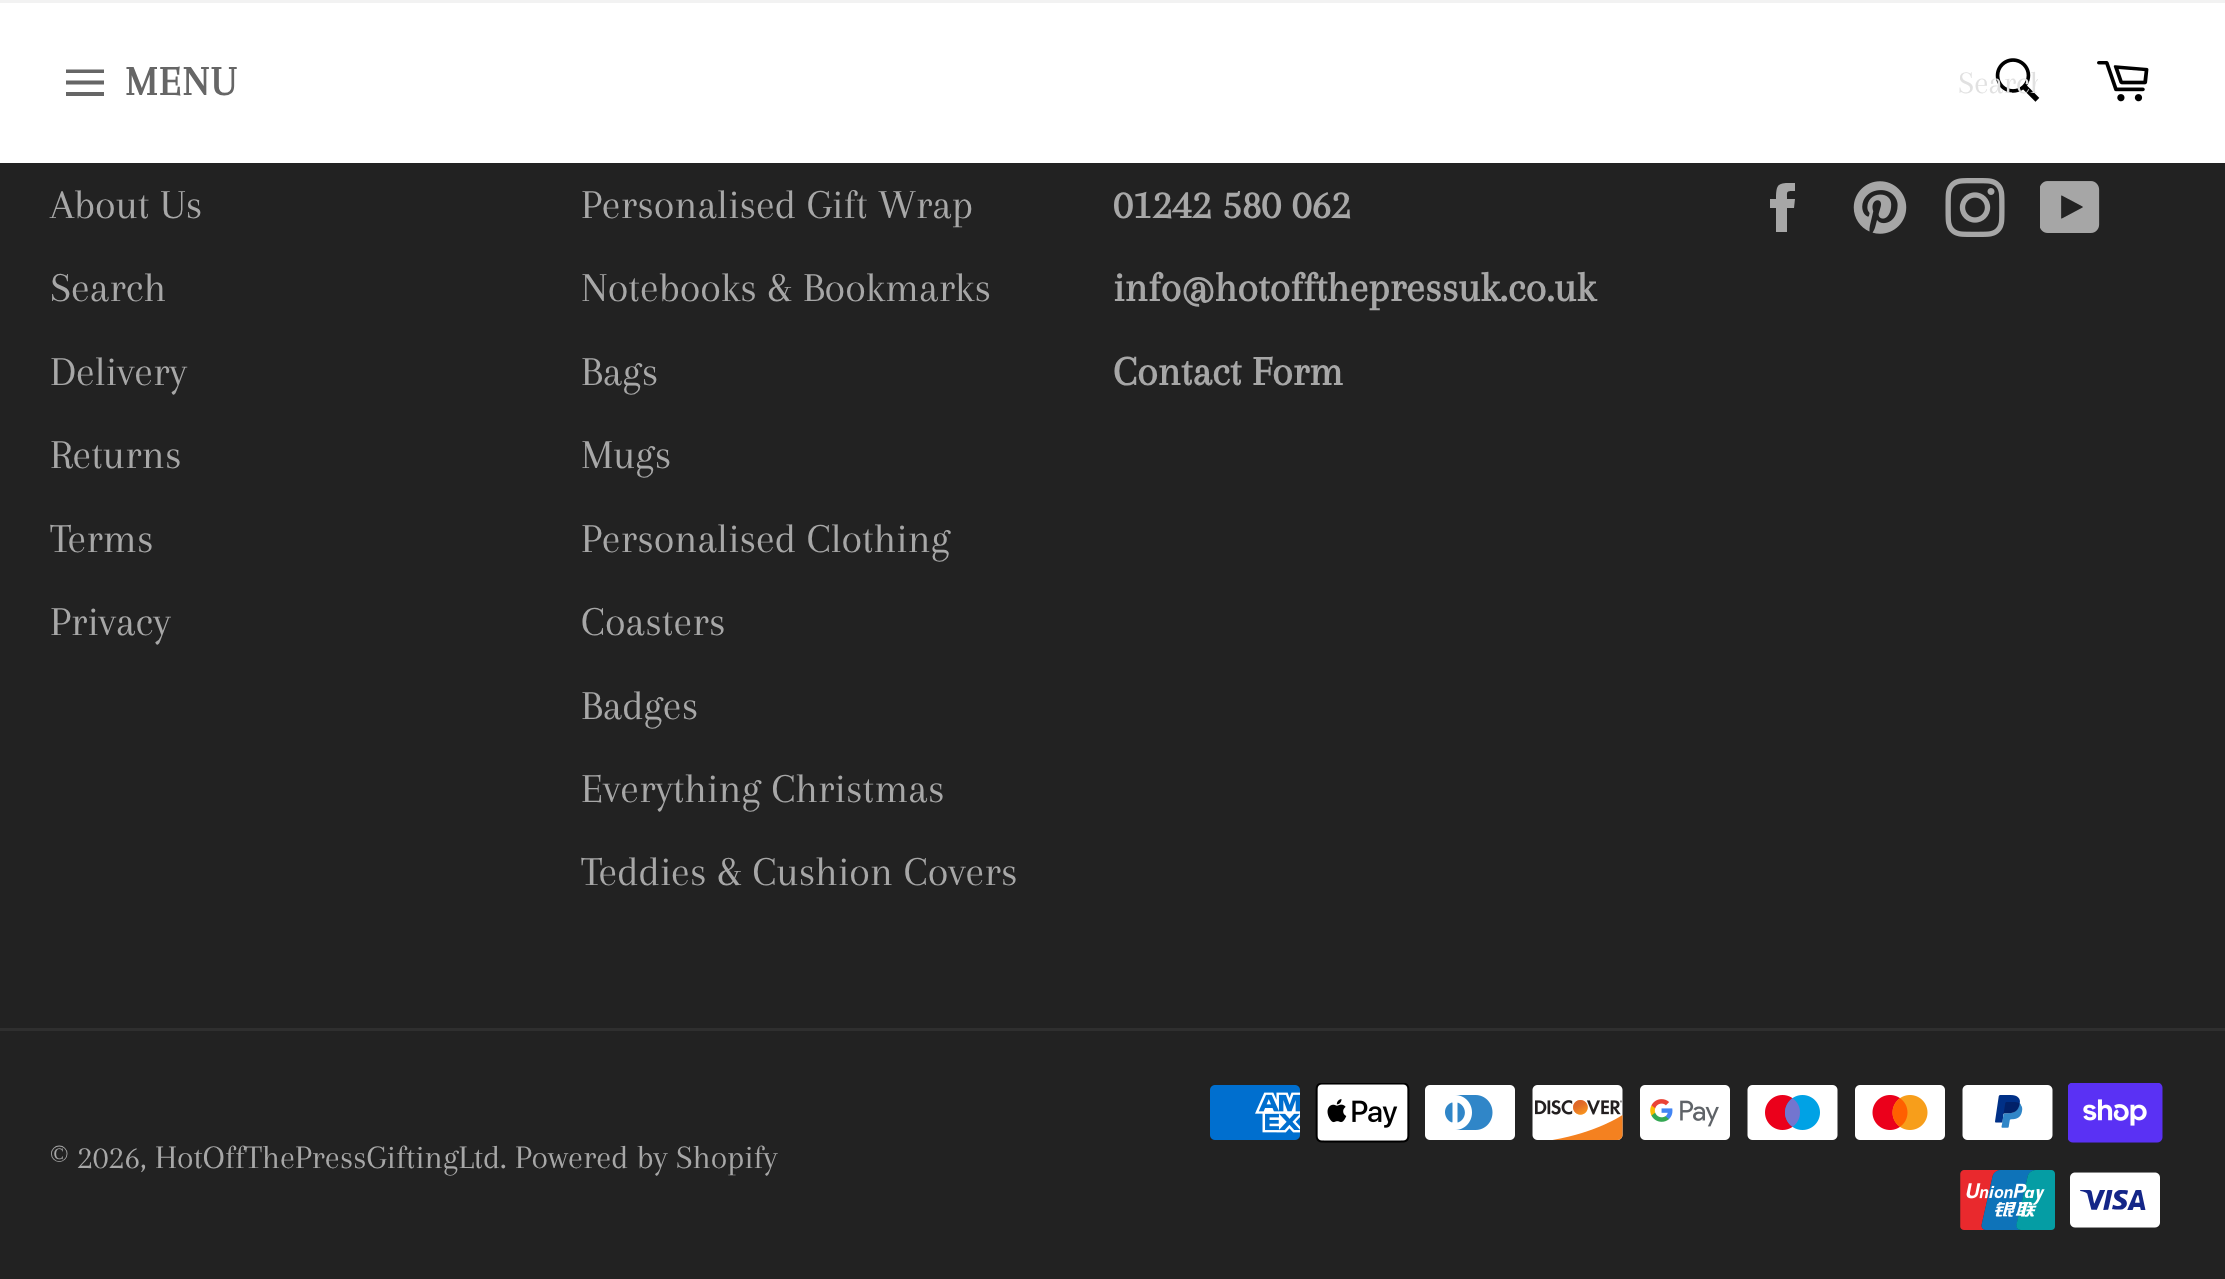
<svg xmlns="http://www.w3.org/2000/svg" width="2225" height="1279">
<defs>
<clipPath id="clip1"><rect x="1958" y="65" width="80" height="35"/></clipPath>
</defs>
<rect width="100%" height="100%" fill="#222"/>
<rect y="3" width="2225" height="160" fill="#fff"/>
<rect width="2225" height="3" fill="#f2f2f2"/>
<path d="M66 80.5h38v4h-38zm0-11h38v3.5h-38zm0 22.5h38v4h-38z" fill="#666"/>
<text x="125" y="95" style="font-family:Arapey;font-size:42.5px;font-weight:bold;letter-spacing:1.5px;fill:#666">MENU</text>
<image x="1995" y="58" width="45" height="44" href="media/1.png"/>
<g clip-path="url(#clip1)">
<text x="1958" y="93" style="font-family:Arapey;font-size:32.5px;fill:#e1e1e1">Search</text>
</g>
<image x="2097" y="61" width="52" height="41" href="media/2.png"/>
<text x="50" y="218" style="font-family:Arapey;font-size:42.5px;fill:#a7a7a7">About Us</text>
<text x="50" y="301" style="font-family:Arapey;font-size:42.5px;fill:#a7a7a7">Search</text>
<text x="50" y="385" style="font-family:Arapey;font-size:42.5px;fill:#a7a7a7">Delivery</text>
<text x="50" y="468" style="font-family:Arapey;font-size:42.5px;fill:#a7a7a7">Returns</text>
<text x="50" y="552" style="font-family:Arapey;font-size:42.5px;fill:#a7a7a7">Terms</text>
<text x="50" y="635" style="font-family:Arapey;font-size:42.5px;fill:#a7a7a7">Privacy</text>
<text x="581" y="218" style="font-family:Arapey;font-size:42.5px;fill:#a7a7a7">Personalised Gift Wrap</text>
<text x="581" y="301" style="font-family:Arapey;font-size:42.5px;fill:#a7a7a7">Notebooks &amp; Bookmarks</text>
<text x="581" y="385" style="font-family:Arapey;font-size:42.5px;fill:#a7a7a7">Bags</text>
<text x="581" y="468" style="font-family:Arapey;font-size:42.5px;fill:#a7a7a7">Mugs</text>
<text x="581" y="552" style="font-family:Arapey;font-size:42.5px;fill:#a7a7a7">Personalised Clothing</text>
<text x="581" y="635" style="font-family:Arapey;font-size:42.5px;fill:#a7a7a7">Coasters</text>
<text x="581" y="719" style="font-family:Arapey;font-size:42.5px;fill:#a7a7a7">Badges</text>
<text x="581" y="802" style="font-family:Arapey;font-size:42.5px;fill:#a7a7a7">Everything Christmas</text>
<text x="581" y="885" style="font-family:Arapey;font-size:42.5px;fill:#a7a7a7">Teddies &amp; Cushion Covers</text>
<text x="1113" y="218" style="font-family:Arapey;font-size:42.5px;font-weight:bold;fill:#a7a7a7">01242 580 062</text>
<text x="1113" y="301" style="font-family:Arapey;font-size:42.5px;font-weight:bold;fill:#a7a7a7">info@hotoffthepressuk.co.uk</text>
<text x="1113" y="385" style="font-family:Arapey;font-size:42.5px;font-weight:bold;fill:#a7a7a7">Contact Form</text>
<path d="M1787 199c0-8-1-8 8-8v-8c-16 0-19-1-19 16h-6v9h6v24h11v-24h7l1-9z" fill="#a7a7a7"/>
<image x="1853" y="181" width="54" height="53" href="media/3.png"/>
<image x="1945" y="178" width="60" height="59" href="media/4.png"/>
<image x="2040" y="181" width="60" height="52" href="media/5.png"/>
<rect y="1028" width="2225" height="3" fill="#2f2f2f"/>
<text x="50" y="1168" style="font-family:Arapey;font-size:34px;fill:#a7a7a7">© 2026, HotOffThePressGiftingLtd. Powered by Shopify</text>
<image x="1210" y="1085" width="90" height="55" href="media/6.png"/>
<image x="1315" y="1083" width="95" height="60" href="media/7.png"/>
<image x="1425" y="1085" width="90" height="55" href="media/8.png"/>
<image x="1532" y="1085" width="91" height="55" href="media/9.png"/>
<image x="1640" y="1085" width="90" height="55" href="media/10.png"/>
<image x="1747" y="1085" width="91" height="55" href="media/11.png"/>
<image x="1855" y="1085" width="90" height="55" href="media/12.png"/>
<image x="1962" y="1085" width="91" height="55" href="media/13.png"/>
<image x="2068" y="1083" width="95" height="60" href="media/14.png"/>
<image x="1960" y="1170" width="95" height="60" href="media/15.png"/>
<image x="2070" y="1172" width="90" height="56" href="media/16.png"/>
</svg>
